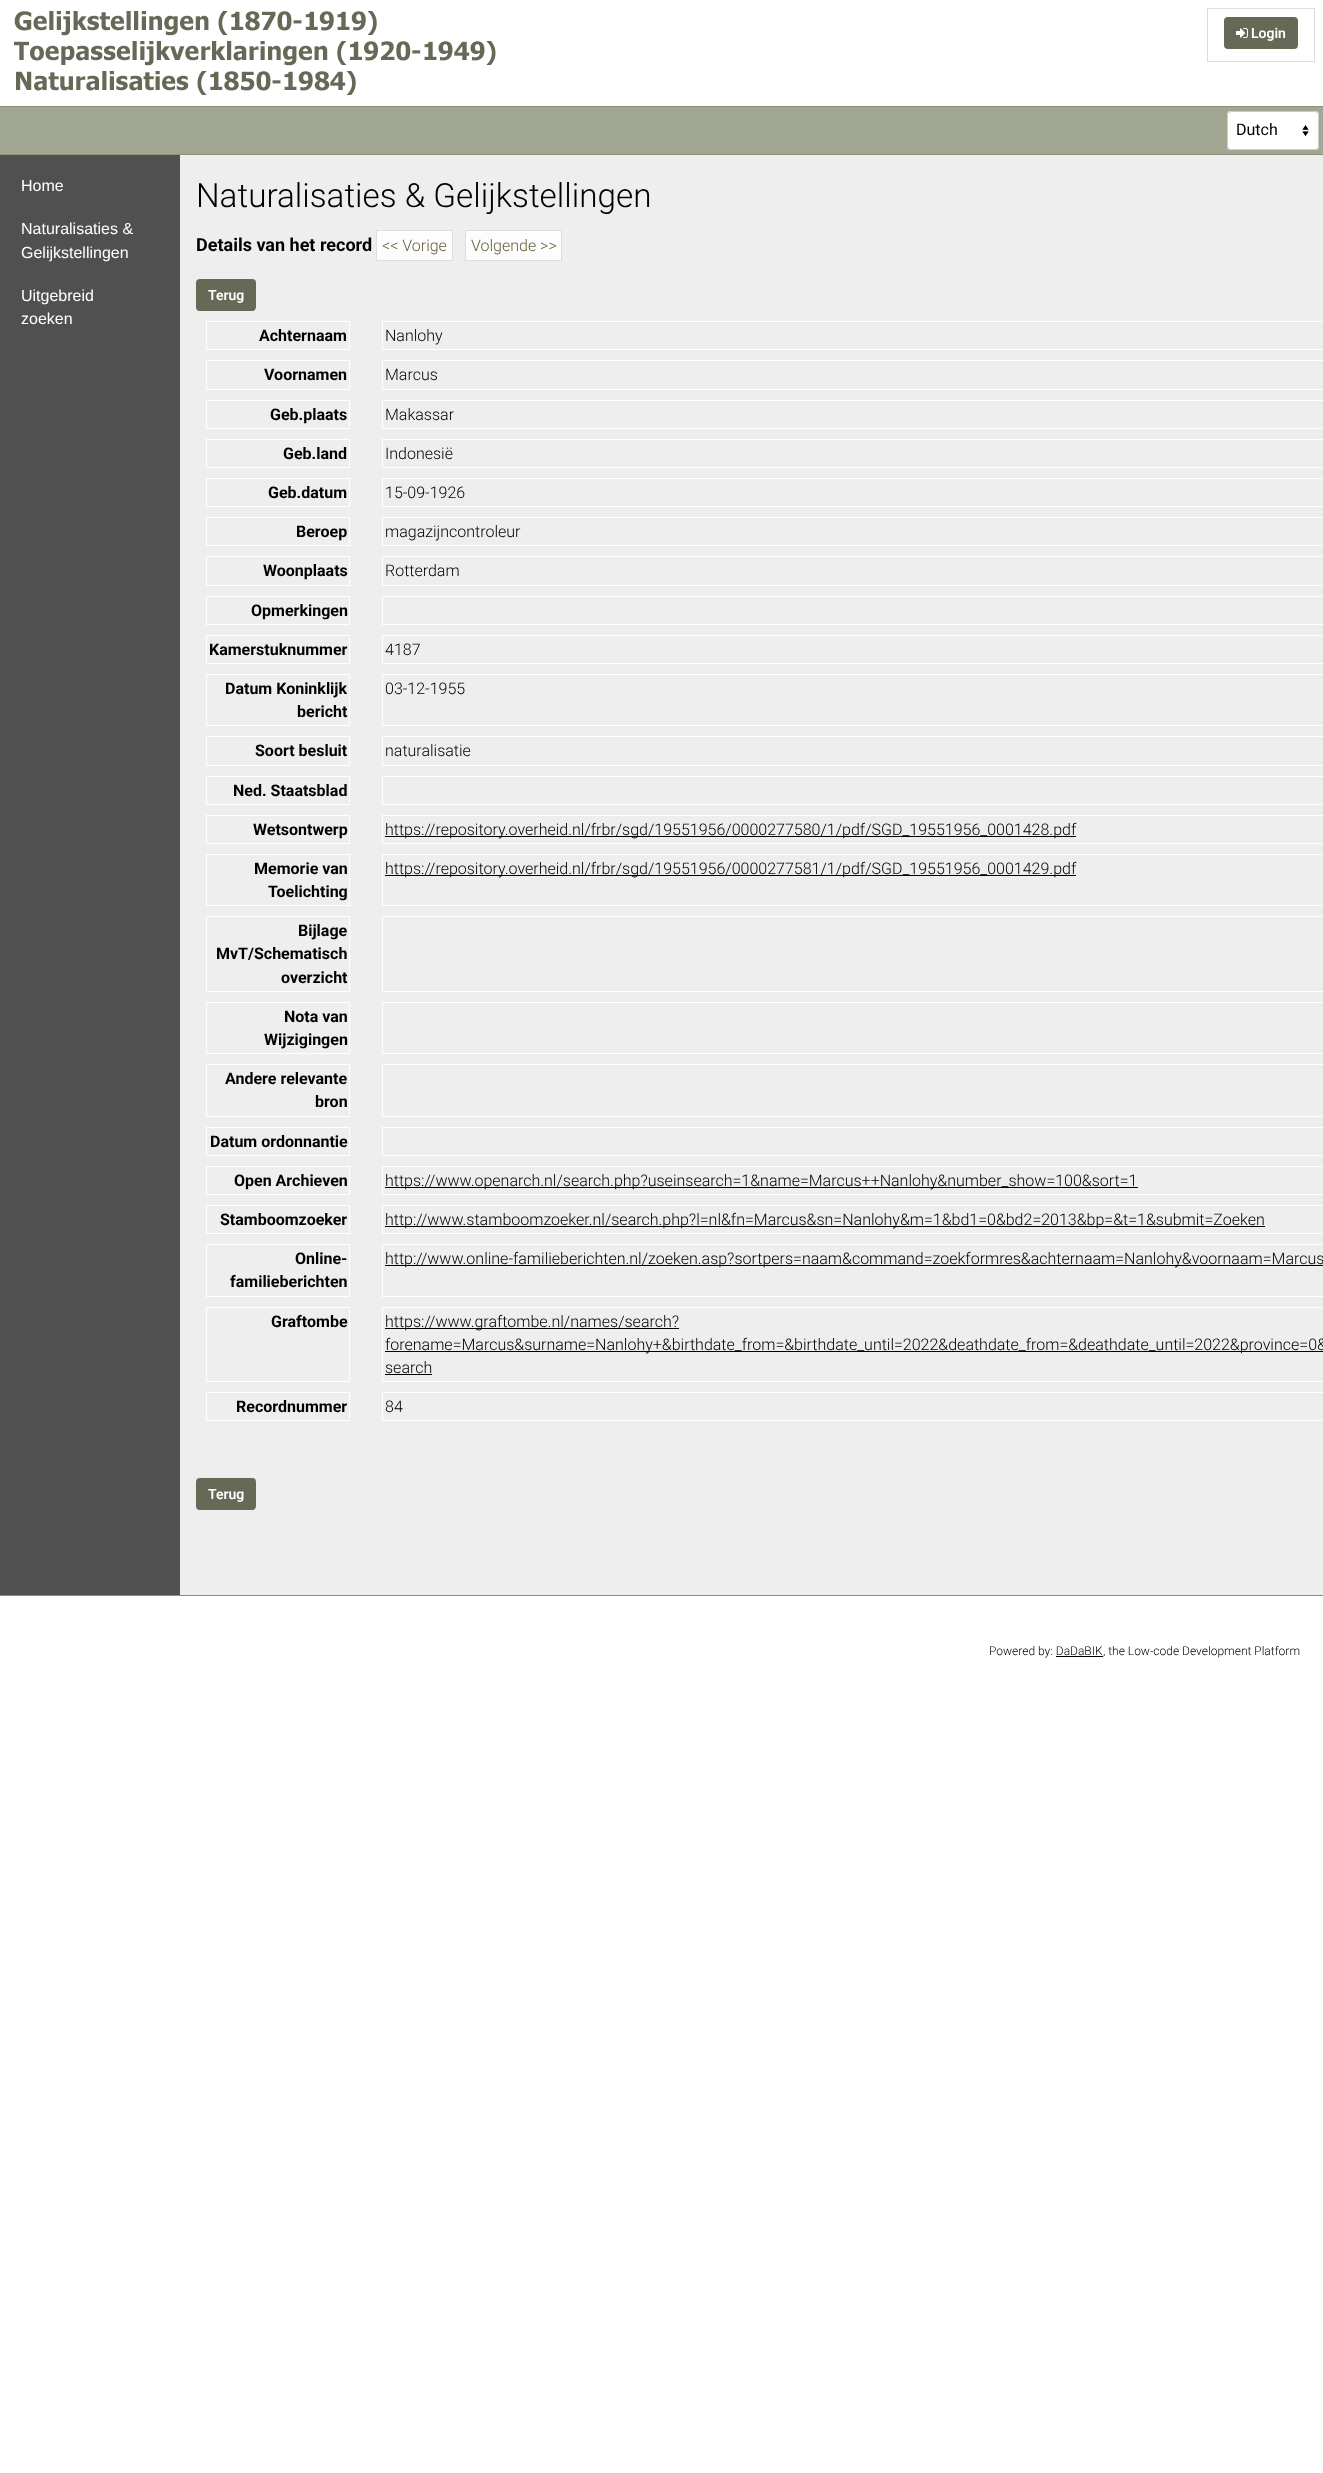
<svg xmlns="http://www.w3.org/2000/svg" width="1323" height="2473">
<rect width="100%" height="100%" fill="#fff"/>
<rect y="1595" width="1323" height="1" fill="#8a9077"/>
<rect y="106" width="1323" height="1" fill="#8a9077"/>
<image x="14" y="11" width="482" height="84" href="media/1.png"/>
<rect x="1207.5" y="8.5" width="107" height="53" fill="none" stroke="#ddd"/>
<rect x="1224" y="17" width="74" height="32" rx="4" fill="#676956"/>
<image x="1236" y="28" width="12" height="10" href="media/2.png"/>
<text x="1251" y="38" style="font-family:Roboto;font-size:14px;font-weight:600;fill:#fff">Login</text>
<rect y="107" width="1323" height="47" fill="#a2a793"/>
<rect y="154" width="1323" height="1" fill="#8a9077"/>
<rect x="1227" y="111" width="92" height="39" rx="4" fill="#fff"/>
<image x="1302" y="125" width="7" height="12" href="media/3.png"/>
<rect x="1227.5" y="111.5" width="91" height="38" rx="3.5" fill="none" stroke="#ccc"/>
<text x="1236" y="135" style="font-family:Roboto;font-size:16px;fill:#000">Dutch</text>
<rect y="155" width="180" height="1440" fill="#505050"/>
<text x="21" y="191" style="font-family:Liberation Sans;font-size:16px;fill:#fff">Home</text>
<text x="21" y="234" style="font-family:Liberation Sans;font-size:16px;fill:#fff">Naturalisaties &amp;</text>
<text x="21" y="258" style="font-family:Liberation Sans;font-size:16px;fill:#fff">Gelijkstellingen</text>
<text x="21" y="301" style="font-family:Liberation Sans;font-size:16px;fill:#fff">Uitgebreid</text>
<text x="21" y="324" style="font-family:Liberation Sans;font-size:16px;fill:#fff">zoeken</text>
<rect x="180" y="155" width="1143" height="1440" fill="#eee"/>
<text x="196" y="207" style="font-family:Roboto;font-size:33.25px;font-weight:300;fill:#000">Naturalisaties &amp; Gelijkstellingen</text>
<text x="196" y="251" style="font-family:Roboto;font-size:18px;font-weight:bold;fill:#000">Details van het record</text>
<rect x="376.5" y="230.5" width="76" height="30" fill="#fdfdfd" stroke="#ddd"/>
<text x="382" y="251" style="font-family:Roboto;font-size:16px;font-weight:300;fill:#66603c">&lt;&lt; Vorige</text>
<rect x="465.5" y="230.5" width="96" height="30" fill="#fdfdfd" stroke="#ddd"/>
<text x="471" y="251" style="font-family:Roboto;font-size:16px;font-weight:300;fill:#66603c">Volgende &gt;&gt;</text>
<rect x="196" y="279" width="60" height="32" rx="4" fill="#676956"/>
<text x="208" y="300" style="font-family:Roboto;font-size:14px;font-weight:600;fill:#fff">Terug</text>
<rect x="206.5" y="321.5" width="143" height="28" fill="none" stroke="#fff"/>
<text x="259" y="341" style="font-family:Roboto;font-size:16px;font-weight:bold;fill:#000">Achternaam</text>
<rect x="382.5" y="321.5" width="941" height="28" fill="none" stroke="#fff"/>
<text x="385" y="341" style="font-family:Roboto;font-size:16px;font-weight:300;fill:#000">Nanlohy</text>
<rect x="206.5" y="360.5" width="143" height="29" fill="none" stroke="#fff"/>
<text x="264" y="380" style="font-family:Roboto;font-size:16px;font-weight:bold;fill:#000">Voornamen</text>
<rect x="382.5" y="360.5" width="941" height="29" fill="none" stroke="#fff"/>
<text x="385" y="380" style="font-family:Roboto;font-size:16px;font-weight:300;fill:#000">Marcus</text>
<rect x="206.5" y="400.5" width="143" height="28" fill="none" stroke="#fff"/>
<text x="270" y="420" style="font-family:Roboto;font-size:16px;font-weight:bold;fill:#000">Geb.plaats</text>
<rect x="382.5" y="400.5" width="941" height="28" fill="none" stroke="#fff"/>
<text x="385" y="420" style="font-family:Roboto;font-size:16px;font-weight:300;fill:#000">Makassar</text>
<rect x="206.5" y="439.5" width="143" height="28" fill="none" stroke="#fff"/>
<text x="283" y="459" style="font-family:Roboto;font-size:16px;font-weight:bold;fill:#000">Geb.land</text>
<rect x="382.5" y="439.5" width="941" height="28" fill="none" stroke="#fff"/>
<text x="385" y="459" style="font-family:Roboto;font-size:16px;font-weight:300;fill:#000">Indonesië</text>
<rect x="206.5" y="478.5" width="143" height="28" fill="none" stroke="#fff"/>
<text x="268" y="498" style="font-family:Roboto;font-size:16px;font-weight:bold;fill:#000">Geb.datum</text>
<rect x="382.5" y="478.5" width="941" height="28" fill="none" stroke="#fff"/>
<text x="385" y="498" style="font-family:Roboto;font-size:16px;font-weight:300;fill:#000">15-09-1926</text>
<rect x="206.5" y="517.5" width="143" height="28" fill="none" stroke="#fff"/>
<text x="296" y="537" style="font-family:Roboto;font-size:16px;font-weight:bold;fill:#000">Beroep</text>
<rect x="382.5" y="517.5" width="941" height="28" fill="none" stroke="#fff"/>
<text x="385" y="537" style="font-family:Roboto;font-size:16px;font-weight:300;fill:#000">magazijncontroleur</text>
<rect x="206.5" y="556.5" width="143" height="29" fill="none" stroke="#fff"/>
<text x="263" y="576" style="font-family:Roboto;font-size:16px;font-weight:bold;fill:#000">Woonplaats</text>
<rect x="382.5" y="556.5" width="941" height="29" fill="none" stroke="#fff"/>
<text x="385" y="576" style="font-family:Roboto;font-size:16px;font-weight:300;fill:#000">Rotterdam</text>
<rect x="206.5" y="596.5" width="143" height="28" fill="none" stroke="#fff"/>
<text x="251" y="616" style="font-family:Roboto;font-size:16px;font-weight:bold;fill:#000">Opmerkingen</text>
<rect x="382.5" y="596.5" width="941" height="28" fill="none" stroke="#fff"/>
<rect x="206.5" y="635.5" width="143" height="28" fill="none" stroke="#fff"/>
<text x="209" y="655" style="font-family:Roboto;font-size:16px;font-weight:bold;fill:#000">Kamerstuknummer</text>
<rect x="382.5" y="635.5" width="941" height="28" fill="none" stroke="#fff"/>
<text x="385" y="655" style="font-family:Roboto;font-size:16px;font-weight:300;fill:#000">4187</text>
<rect x="206.5" y="674.5" width="143" height="51" fill="none" stroke="#fff"/>
<text x="225" y="694" style="font-family:Roboto;font-size:16px;font-weight:bold;fill:#000">Datum Koninklijk</text>
<text x="297" y="717" style="font-family:Roboto;font-size:16px;font-weight:bold;fill:#000">bericht</text>
<rect x="382.5" y="674.5" width="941" height="51" fill="none" stroke="#fff"/>
<text x="385" y="694" style="font-family:Roboto;font-size:16px;font-weight:300;fill:#000">03-12-1955</text>
<rect x="206.5" y="736.5" width="143" height="29" fill="none" stroke="#fff"/>
<text x="255" y="756" style="font-family:Roboto;font-size:16px;font-weight:bold;fill:#000">Soort besluit</text>
<rect x="382.5" y="736.5" width="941" height="29" fill="none" stroke="#fff"/>
<text x="385" y="756" style="font-family:Roboto;font-size:16px;font-weight:300;fill:#000">naturalisatie</text>
<rect x="206.5" y="776.5" width="143" height="28" fill="none" stroke="#fff"/>
<text x="233" y="796" style="font-family:Roboto;font-size:16px;font-weight:bold;fill:#000">Ned. Staatsblad</text>
<rect x="382.5" y="776.5" width="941" height="28" fill="none" stroke="#fff"/>
<rect x="206.5" y="815.5" width="143" height="28" fill="none" stroke="#fff"/>
<text x="253" y="835" style="font-family:Roboto;font-size:16px;font-weight:bold;fill:#000">Wetsontwerp</text>
<rect x="382.5" y="815.5" width="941" height="28" fill="none" stroke="#fff"/>
<rect x="385" y="836" width="691" height="1" fill="#000"/>
<text x="385" y="835" style="font-family:Roboto;font-size:16px;font-weight:300;fill:#000">https://repository.overheid.nl/frbr/sgd/19551956/0000277580/1/pdf/SGD_19551956_0001428.pdf</text>
<rect x="206.5" y="854.5" width="143" height="51" fill="none" stroke="#fff"/>
<text x="254" y="874" style="font-family:Roboto;font-size:16px;font-weight:bold;fill:#000">Memorie van</text>
<text x="268" y="897" style="font-family:Roboto;font-size:16px;font-weight:bold;fill:#000">Toelichting</text>
<rect x="382.5" y="854.5" width="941" height="51" fill="none" stroke="#fff"/>
<rect x="385" y="875" width="691" height="1" fill="#000"/>
<text x="385" y="874" style="font-family:Roboto;font-size:16px;font-weight:300;fill:#000">https://repository.overheid.nl/frbr/sgd/19551956/0000277581/1/pdf/SGD_19551956_0001429.pdf</text>
<rect x="206.5" y="916.5" width="143" height="75" fill="none" stroke="#fff"/>
<text x="298" y="936" style="font-family:Roboto;font-size:16px;font-weight:bold;fill:#000">Bijlage</text>
<text x="216" y="959" style="font-family:Roboto;font-size:16px;font-weight:bold;fill:#000">MvT/Schematisch</text>
<text x="281" y="983" style="font-family:Roboto;font-size:16px;font-weight:bold;fill:#000">overzicht</text>
<rect x="382.5" y="916.5" width="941" height="75" fill="none" stroke="#fff"/>
<rect x="206.5" y="1002.5" width="143" height="51" fill="none" stroke="#fff"/>
<text x="284" y="1022" style="font-family:Roboto;font-size:16px;font-weight:bold;fill:#000">Nota van</text>
<text x="264" y="1045" style="font-family:Roboto;font-size:16px;font-weight:bold;fill:#000">Wijzigingen</text>
<rect x="382.5" y="1002.5" width="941" height="51" fill="none" stroke="#fff"/>
<rect x="206.5" y="1064.5" width="143" height="52" fill="none" stroke="#fff"/>
<text x="225" y="1084" style="font-family:Roboto;font-size:16px;font-weight:bold;fill:#000">Andere relevante</text>
<text x="315" y="1107" style="font-family:Roboto;font-size:16px;font-weight:bold;fill:#000">bron</text>
<rect x="382.5" y="1064.5" width="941" height="52" fill="none" stroke="#fff"/>
<rect x="206.5" y="1127.5" width="143" height="28" fill="none" stroke="#fff"/>
<text x="210" y="1147" style="font-family:Roboto;font-size:16px;font-weight:bold;fill:#000">Datum ordonnantie</text>
<rect x="382.5" y="1127.5" width="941" height="28" fill="none" stroke="#fff"/>
<rect x="206.5" y="1166.5" width="143" height="28" fill="none" stroke="#fff"/>
<text x="234" y="1186" style="font-family:Roboto;font-size:16px;font-weight:bold;fill:#000">Open Archieven</text>
<rect x="382.5" y="1166.5" width="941" height="28" fill="none" stroke="#fff"/>
<rect x="385" y="1187" width="753" height="1" fill="#000"/>
<text x="385" y="1186" style="font-family:Roboto;font-size:16px;font-weight:300;fill:#000">https://www.openarch.nl/search.php?useinsearch=1&amp;name=Marcus++Nanlohy&amp;number_show=100&amp;sort=1</text>
<rect x="206.5" y="1205.5" width="143" height="28" fill="none" stroke="#fff"/>
<text x="220" y="1225" style="font-family:Roboto;font-size:16px;font-weight:bold;fill:#000">Stamboomzoeker</text>
<rect x="382.5" y="1205.5" width="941" height="28" fill="none" stroke="#fff"/>
<rect x="385" y="1226" width="880" height="1" fill="#000"/>
<text x="385" y="1225" style="font-family:Roboto;font-size:16px;font-weight:300;fill:#000">http://www.stamboomzoeker.nl/search.php?l=nl&amp;fn=Marcus&amp;sn=Nanlohy&amp;m=1&amp;bd1=0&amp;bd2=2013&amp;bp=&amp;t=1&amp;submit=Zoeken</text>
<rect x="206.5" y="1244.5" width="143" height="52" fill="none" stroke="#fff"/>
<text x="295" y="1264" style="font-family:Roboto;font-size:16px;font-weight:bold;fill:#000">Online-</text>
<text x="230" y="1287" style="font-family:Roboto;font-size:16px;font-weight:bold;fill:#000">familieberichten</text>
<rect x="382.5" y="1244.5" width="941" height="52" fill="none" stroke="#fff"/>
<rect x="385" y="1265" width="938" height="1" fill="#000"/>
<text x="385" y="1264" style="font-family:Roboto;font-size:16px;font-weight:300;fill:#000">http://www.online-familieberichten.nl/zoeken.asp?sortpers=naam&amp;command=zoekformres&amp;achternaam=Nanlohy&amp;voornaam=Marcus</text>
<rect x="206.5" y="1307.5" width="143" height="74" fill="none" stroke="#fff"/>
<text x="271" y="1327" style="font-family:Roboto;font-size:16px;font-weight:bold;fill:#000">Graftombe</text>
<rect x="382.5" y="1307.5" width="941" height="74" fill="none" stroke="#fff"/>
<rect x="385" y="1328" width="294" height="1" fill="#000"/>
<text x="385" y="1327" style="font-family:Roboto;font-size:16px;font-weight:300;fill:#000">https://www.graftombe.nl/names/search?</text>
<rect x="385" y="1351" width="938" height="1" fill="#000"/>
<text x="385" y="1350" style="font-family:Roboto;font-size:16px;font-weight:300;fill:#000">forename=Marcus&amp;surname=Nanlohy+&amp;birthdate_from=&amp;birthdate_until=2022&amp;deathdate_from=&amp;deathdate_until=2022&amp;province=0&amp;</text>
<text x="385" y="1373" style="font-family:Roboto;font-size:16px;font-weight:300;fill:#000">search</text>
<rect x="385" y="1374" width="47" height="1" fill="#000"/>
<rect x="206.5" y="1392.5" width="143" height="28" fill="none" stroke="#fff"/>
<text x="236" y="1412" style="font-family:Roboto;font-size:16px;font-weight:bold;fill:#000">Recordnummer</text>
<rect x="382.5" y="1392.5" width="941" height="28" fill="none" stroke="#fff"/>
<text x="385" y="1412" style="font-family:Roboto;font-size:16px;font-weight:300;fill:#000">84</text>
<rect x="196" y="1478" width="60" height="32" rx="4" fill="#676956"/>
<text x="208" y="1499" style="font-family:Roboto;font-size:14px;font-weight:600;fill:#fff">Terug</text>
<text x="989" y="1655" style="font-family:Roboto;font-size:12px;font-weight:300;fill:#000">Powered by: DaDaBIK</text>
<rect x="1056" y="1656" width="47" height="1" fill="#000"/>
<text x="1103" y="1655" style="font-family:Roboto;font-size:12px;font-weight:300;fill:#000">, the Low-code Development Platform</text>
</svg>
